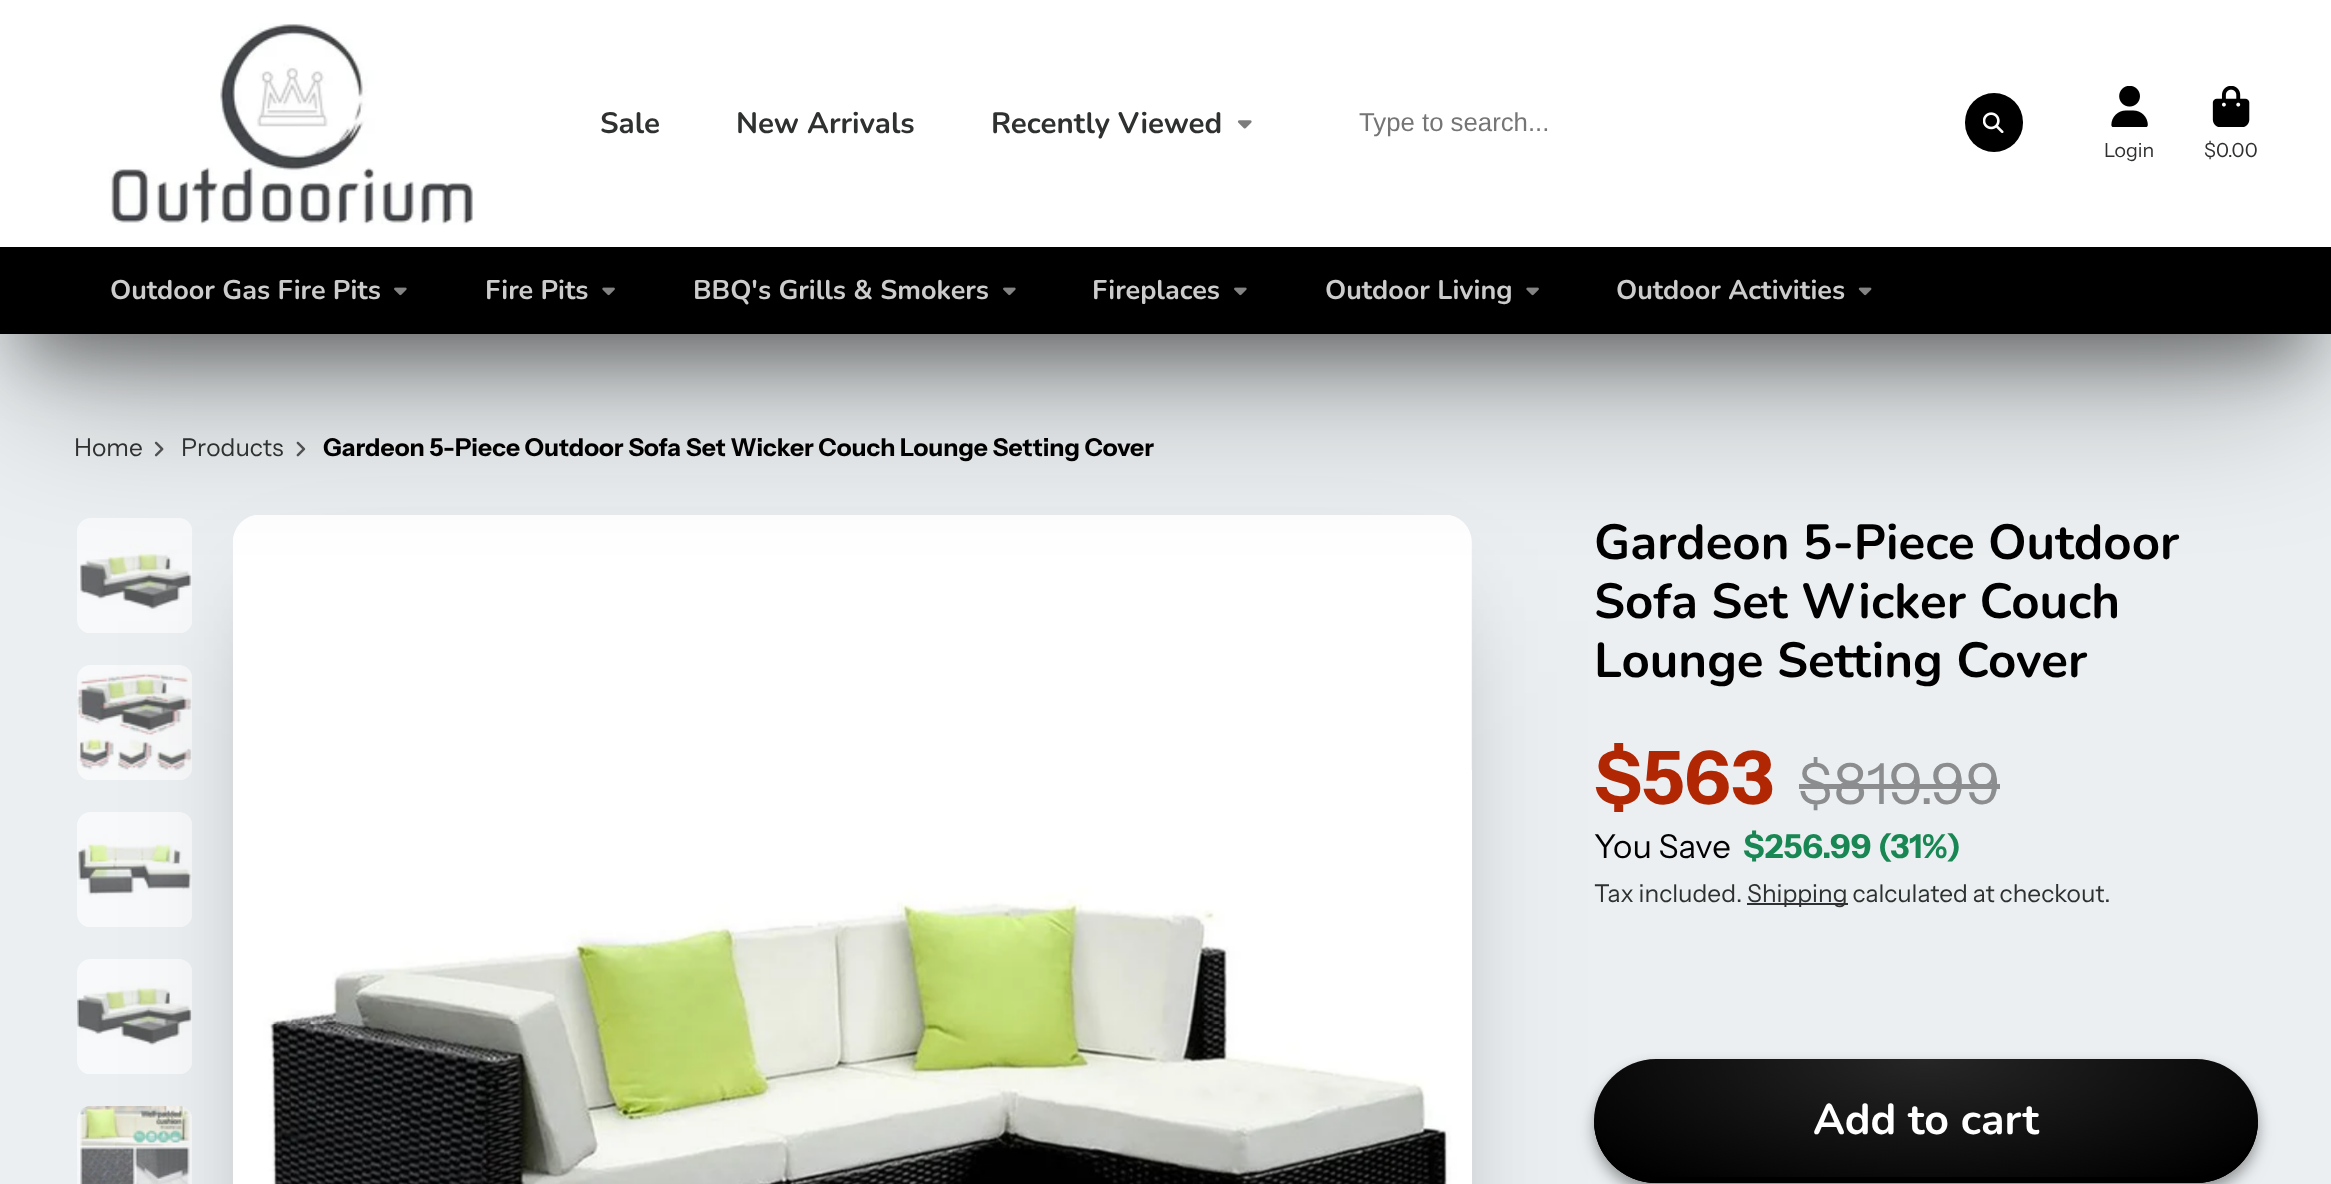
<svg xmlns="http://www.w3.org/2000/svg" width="2331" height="1184">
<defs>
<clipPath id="clip1"><rect x="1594" y="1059" width="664" height="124" rx="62"/></clipPath>
<radialGradient id="g1" gradientUnits="userSpaceOnUse" cx="0" cy="0" r="1" gradientTransform="matrix(469 0 0 176 1926 1059)"><stop offset="0" stop-color="#262626"/><stop offset="0.9" stop-color="#000"/></radialGradient>
</defs>
<rect width="100%" height="100%" fill="#ebeff1"/>
<image x="154" y="441" width="10" height="16" href="media/9.png"/>
<image x="296" y="441" width="10" height="16" href="media/10.png"/>
<rect x="25" y="70" width="2282" height="285" fill="#00000066" filter="blur(33.5px)"/>
<image x="77" y="518" width="115" height="115" href="media/12.png"/>
<image x="77" y="665" width="115" height="115" href="media/13.png"/>
<image x="77" y="812" width="115" height="115" href="media/14.png"/>
<image x="77" y="959" width="115" height="115" href="media/15.png"/>
<image x="77" y="1106" width="115" height="78" href="media/16.png"/>
<rect x="278" y="607" width="1148" height="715" fill="#0000004d" filter="blur(46px)"/>
<rect x="264" y="621" width="1178" height="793" fill="#0000001a" filter="blur(76.5px)"/>
<image x="233" y="515" width="1239" height="669" href="media/11.png"/>
<rect x="25" y="102" width="2282" height="285" fill="#0000004d" filter="blur(76.5px)"/>
<rect width="2331" height="247" fill="#fff"/>
<image x="109" y="23" width="364" height="202" href="media/1.png"/>
<text x="600" y="133" style="font-family:Nunito;font-size:29.5px;font-weight:bold;fill:#2f3030">Sale</text>
<text x="736" y="133" style="font-family:Nunito;font-size:29.5px;font-weight:bold;fill:#2f3030">New Arrivals</text>
<text x="991" y="133" style="font-family:Nunito;font-size:29.5px;font-weight:bold;fill:#2f3030">Recently Viewed</text>
<image x="1237" y="120" width="15" height="9" href="media/2.png"/>
<text x="1359" y="131" style="font-family:Liberation Sans;font-size:25.75px;fill:#757575">Type to search...</text>
<rect x="1965" y="93" width="58" height="59" rx="29" fill="#000"/>
<image x="1983" y="112" width="21" height="21" href="media/3.png"/>
<image x="2111" y="86" width="37" height="41" href="media/4.png"/>
<text x="2104" y="157" style="font-family:Instrument Sans;font-size:19.5px;fill:#2f3030">Login</text>
<image x="2212" y="86" width="38" height="41" href="media/5.png"/>
<text x="2204" y="157" style="font-family:Instrument Sans;font-size:19.5px;fill:#2f3030">$0.00</text>
<rect y="247" width="2331" height="87" fill="#000"/>
<text x="110" y="299" style="font-family:Nunito;font-size:27px;font-weight:bold;fill:#ccc">Outdoor Gas Fire Pits</text>
<image x="394" y="287" width="13" height="9" href="media/6.png"/>
<text x="485" y="299" style="font-family:Nunito;font-size:27px;font-weight:bold;fill:#ccc">Fire Pits</text>
<image x="602" y="287" width="13" height="9" href="media/7.png"/>
<text x="693" y="299" style="font-family:Nunito;font-size:27px;font-weight:bold;fill:#ccc">BBQ's Grills &amp; Smokers</text>
<image x="1003" y="287" width="13" height="9" href="media/6.png"/>
<text x="1092" y="299" style="font-family:Nunito;font-size:27px;font-weight:bold;fill:#ccc">Fireplaces</text>
<image x="1234" y="287" width="13" height="9" href="media/6.png"/>
<text x="1325" y="299" style="font-family:Nunito;font-size:27px;font-weight:bold;fill:#ccc">Outdoor Living</text>
<image x="1526" y="287" width="13" height="9" href="media/7.png"/>
<text x="1616" y="299" style="font-family:Nunito;font-size:27px;font-weight:bold;fill:#ccc">Outdoor Activities</text>
<image x="1858" y="287" width="14" height="9" href="media/8.png"/>
<text x="74" y="456" style="font-family:Instrument Sans;font-size:24.5px;fill:#2f3030">Home</text>
<text x="181" y="456" style="font-family:Instrument Sans;font-size:24.5px;fill:#2f3030">Products</text>
<text x="323" y="456" style="font-family:Instrument Sans;font-size:24.5px;font-weight:bold;fill:#000">Gardeon 5-Piece Outdoor Sofa Set Wicker Couch Lounge Setting Cover</text>
<text x="1594" y="559" style="font-family:Nunito;font-size:49.25px;font-weight:bold;fill:#000">Gardeon 5-Piece Outdoor</text>
<text x="1594" y="618" style="font-family:Nunito;font-size:49.25px;font-weight:bold;fill:#000">Sofa Set Wicker Couch</text>
<text x="1594" y="677" style="font-family:Nunito;font-size:49.25px;font-weight:bold;fill:#000">Lounge Setting Cover</text>
<text x="1594" y="804" style="font-family:Instrument Sans;font-size:73.5px;font-weight:bold;fill:#b12704">$563</text>
<text x="1798" y="804" style="font-family:Instrument Sans;font-size:56.5px;fill:#8b8d8e">$819.99</text>
<rect x="1799" y="784" width="201" height="5" fill="#8b8d8e"/>
<text x="1594" y="858" style="font-family:Instrument Sans;font-size:33px;fill:#000">You Save</text>
<text x="1743" y="858" style="font-family:Instrument Sans;font-size:33px;font-weight:bold;fill:#198754">$256.99 (31%)</text>
<text x="1594" y="902" style="font-family:Instrument Sans;font-size:24.5px;fill:#2f3030">Tax included.</text>
<rect x="1747" y="903" width="101" height="2" fill="#2f3030"/>
<text x="1747" y="902" style="font-family:Instrument Sans;font-size:24.5px;fill:#2f3030">Shipping calculated at checkout.</text>
<rect x="1601" y="1078" width="650" height="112" rx="56" fill="#00000026" filter="blur(13px)"/>
<rect x="1594" y="1066" width="664" height="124" rx="62" fill="#0000004d" filter="blur(6.5px)"/>
<g clip-path="url(#clip1)">
<rect x="1601" y="1078" width="650" height="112" rx="56" fill="#00000026" filter="blur(13px)"/>
<rect x="1594" y="1066" width="664" height="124" rx="62" fill="#0000004d" filter="blur(6.5px)"/>
</g>
<rect x="1594" y="1059" width="664" height="124" rx="62" fill="url(#g1)"/>
<path d="M1594 1118v3c0 34 28 62 62 62h540c34 0 62-28 62-62v-3c-2 33-29 59-63 59h-539c-33 0-60-26-62-59z" fill="#000"/>
<text x="1813" y="1134" style="font-family:Nunito;font-size:43px;font-weight:bold;fill:#fff">Add to cart</text>
</svg>
